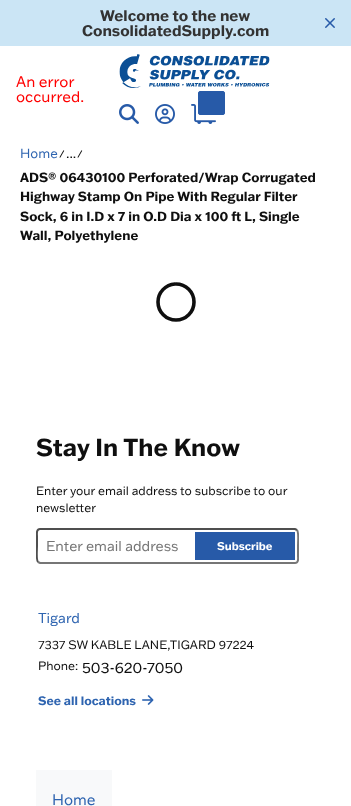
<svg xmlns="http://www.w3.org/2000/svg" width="351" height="806">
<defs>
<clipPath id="clip1"><rect x="36" y="528" width="263" height="36"/></clipPath>
</defs>
<rect width="100%" height="100%" fill="#fff"/>
<rect width="351" height="46" fill="#cbe5f5"/>
<text x="100" y="21" style="font-family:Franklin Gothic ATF;font-size:15px;font-weight:bold;fill:#333">Welcome to the new</text>
<text x="82" y="36" style="font-family:Franklin Gothic ATF;font-size:15px;font-weight:bold;fill:#333">ConsolidatedSupply.com</text>
<image x="325" y="18" width="10" height="10" href="media/1.png"/>
<text x="16" y="87" style="font-family:Franklin Gothic ATF;font-size:15px;fill:#f00">An error</text>
<text x="16" y="102" style="font-family:Franklin Gothic ATF;font-size:15px;fill:#f00">occurred.</text>
<image x="119" y="54" width="151" height="34" href="media/2.png"/>
<image x="119" y="104" width="20" height="20" href="media/3.png"/>
<image x="155" y="104" width="20" height="20" href="media/4.png"/>
<image x="191" y="104" width="25" height="20" href="media/5.png"/>
<rect x="198.5" y="91.5" width="26" height="23" rx="1.5" fill="#275aa8" stroke="#275aa8"/>
<text x="20" y="158" style="font-family:Franklin Gothic ATF;font-size:13px;fill:#2e64b0">Home</text>
<image x="59" y="150" width="6" height="8" href="media/6.png"/>
<text x="66" y="158" style="font-family:Franklin Gothic ATF;font-size:13px;fill:#0f0f0f">...</text>
<image x="77" y="150" width="6" height="8" href="media/6.png"/>
<text x="20" y="182" style="font-family:Franklin Gothic ATF;font-size:13px;font-weight:bold;fill:#0f0f0f">ADS® 06430100 Perforated/Wrap Corrugated</text>
<text x="20" y="201" style="font-family:Franklin Gothic ATF;font-size:13px;font-weight:bold;fill:#0f0f0f">Highway Stamp On Pipe With Regular Filter</text>
<text x="20" y="221" style="font-family:Franklin Gothic ATF;font-size:13px;font-weight:bold;fill:#0f0f0f">Sock, 6 in I.D x 7 in O.D Dia x 100 ft L, Single</text>
<text x="20" y="240" style="font-family:Franklin Gothic ATF;font-size:13px;font-weight:bold;fill:#0f0f0f">Wall, Polyethylene</text>
<path d="M176 284c10 0 18 8 18 18c0 10-8 18-18 18c-10 0-18-8-18-18c0-9.5 7.5-17.5 17-18" fill="none" stroke="#0f0f0f" stroke-width="3.6" stroke-linecap="round"/>
<text x="36" y="456" style="font-family:Franklin Gothic ATF;font-size:24px;font-weight:bold;fill:#0f0f0f">Stay In The Know</text>
<text x="36" y="495" style="font-family:Franklin Gothic ATF;font-size:12px;fill:#0f0f0f">Enter your email address to subscribe to our</text>
<text x="36" y="512" style="font-family:Franklin Gothic ATF;font-size:12px;fill:#0f0f0f">newsletter</text>
<g clip-path="url(#clip1)">
<path d="M297 530c2 2 1 13 1 16v9.5c0 2 1 7.5-3 7.5h-255l-2-1" fill="none" stroke="#767676" stroke-width="2"/>
<path d="M38 562c-2-2-1-13-1-16v-9.5c0-2-1-7.5 3-7.5h255l2 1" fill="none" stroke="#4f4f4f" stroke-width="2"/>
</g>
<text x="46" y="551" style="font-family:Franklin Gothic ATF;font-size:14px;fill:#757575">Enter email address</text>
<rect x="195" y="532" width="100" height="28" fill="#275aa8"/>
<text x="217" y="550" style="font-family:Franklin Gothic ATF;font-size:11px;font-weight:bold;fill:#fff">Subscribe</text>
<text x="38" y="623" style="font-family:Franklin Gothic ATF;font-size:14px;fill:#2e64b0">Tigard</text>
<text x="38" y="649" style="font-family:Franklin Gothic ATF;font-size:12px;fill:#0f0f0f">7337 SW KABLE LANE,TIGARD 97224</text>
<text x="38" y="670" style="font-family:Franklin Gothic ATF;font-size:12px;fill:#0f0f0f">Phone:</text>
<text x="82" y="673" style="font-family:Franklin Gothic ATF;font-size:15px;fill:#0f0f0f">503-620-7050</text>
<text x="38" y="705" style="font-family:Franklin Gothic ATF;font-size:12px;font-weight:bold;fill:#2e64b0">See all locations</text>
<image x="142" y="695" width="12" height="10" href="media/7.png"/>
<rect x="36" y="770" width="76" height="36" fill="#f8f9fa"/>
<text x="52" y="805" style="font-family:Franklin Gothic ATF;font-size:15px;fill:#2e64b0">Home</text>
</svg>
